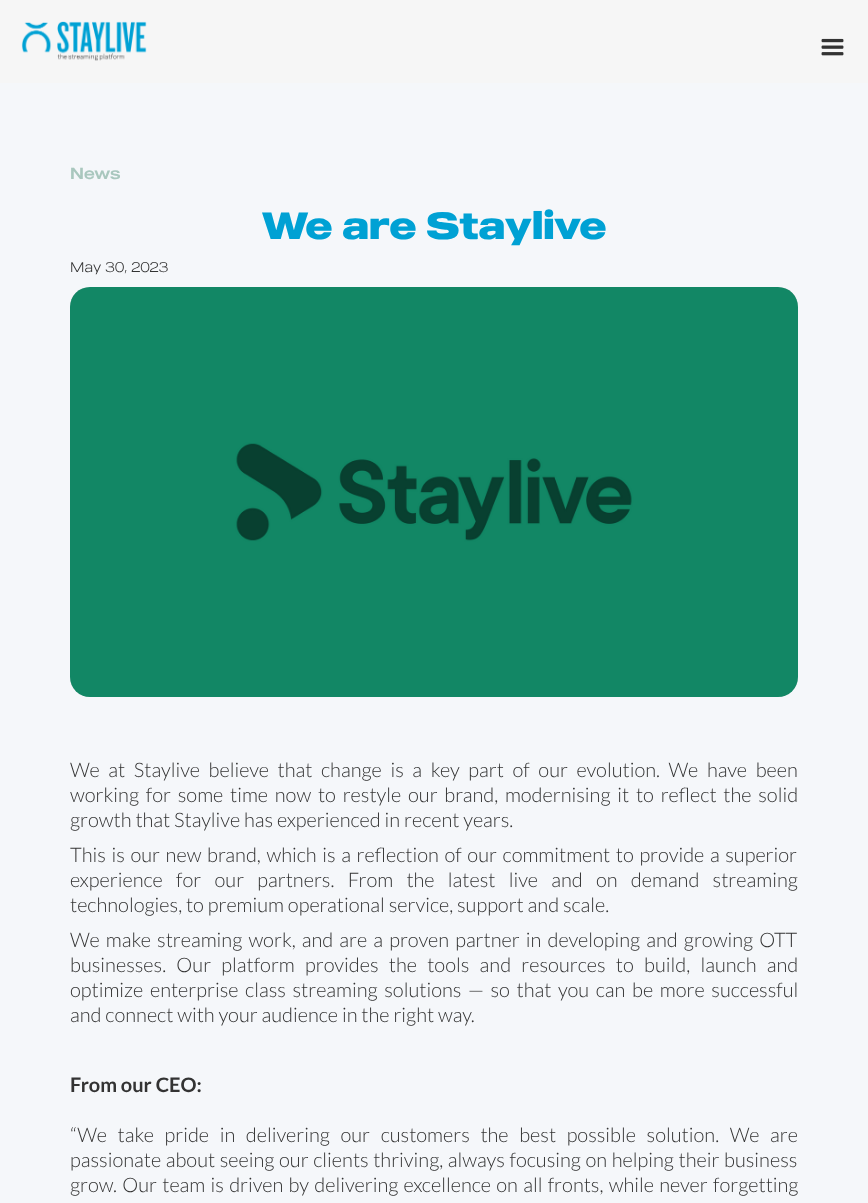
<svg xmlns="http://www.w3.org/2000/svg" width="868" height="1203">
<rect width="100%" height="100%" fill="#f5f7fa"/>
<rect width="868" height="83" fill="#f6f6f6"/>
<image x="21" y="21" width="126" height="40" href="media/1.png"/>
<image x="821" y="38" width="23" height="18" href="media/2.png"/>
<text x="70" y="179" style="font-family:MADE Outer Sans;font-size:16px;fill:#a9c7be">News</text>
<text x="262" y="239" style="font-family:MADE Outer Sans;font-size:38px;font-weight:bold;fill:#00a1d4">We are Staylive</text>
<text x="70" y="272" style="font-family:MADE Outer Sans;font-size:14px;font-weight:100;fill:#333">May 30, 2023</text>
<image x="70" y="287" width="728" height="410" href="media/3.png"/>
<image x="70" y="287" width="728" height="410" href="media/4.png"/>
<text x="70" y="777" word-spacing="4.75" style="font-family:Lato;font-size:20px;font-weight:300;fill:#333">We at Staylive believe that change is a key part of our evolution. We have been</text>
<text x="70" y="802" word-spacing="2.9" style="font-family:Lato;font-size:20px;font-weight:300;fill:#333">working for some time now to restyle our brand, modernising it to reflect the solid</text>
<text x="70" y="827" style="font-family:Lato;font-size:20px;font-weight:300;fill:#333">growth that Staylive has experienced in recent years.</text>
<text x="70" y="862" word-spacing="1.75" style="font-family:Lato;font-size:20px;font-weight:300;fill:#333">This is our new brand, which is a reflection of our commitment to provide a superior</text>
<text x="70" y="887" word-spacing="9.4" style="font-family:Lato;font-size:20px;font-weight:300;fill:#333">experience for our partners. From the latest live and on demand streaming</text>
<text x="70" y="912" style="font-family:Lato;font-size:20px;font-weight:300;fill:#333">technologies, to premium operational service, support and scale.</text>
<text x="70" y="947" word-spacing="2.25" style="font-family:Lato;font-size:20px;font-weight:300;fill:#333">We make streaming work, and are a proven partner in developing and growing OTT</text>
<text x="70" y="972" word-spacing="6.4" style="font-family:Lato;font-size:20px;font-weight:300;fill:#333">businesses. Our platform provides the tools and resources to build, launch and</text>
<text x="70" y="997" word-spacing="2.75" style="font-family:Lato;font-size:20px;font-weight:300;fill:#333">optimize enterprise class streaming solutions — so that you can be more successful</text>
<text x="70" y="1022" style="font-family:Lato;font-size:20px;font-weight:300;fill:#333">and connect with your audience in the right way.</text>
<text x="70" y="1092" style="font-family:Lato;font-size:20px;font-weight:bold;fill:#333">From our CEO:</text>
<text x="70" y="1142" word-spacing="6.75" style="font-family:Lato;font-size:20px;font-weight:300;fill:#333">“We take pride in delivering our customers the best possible solution. We are</text>
<text x="70" y="1167" word-spacing="0.75" style="font-family:Lato;font-size:20px;font-weight:300;fill:#333">passionate about seeing our clients thriving, always focusing on helping their business</text>
<text x="70" y="1192" word-spacing="1.4" style="font-family:Lato;font-size:20px;font-weight:300;fill:#333">grow. Our team is driven by delivering excellence on all fronts, while never forgetting</text>
</svg>
